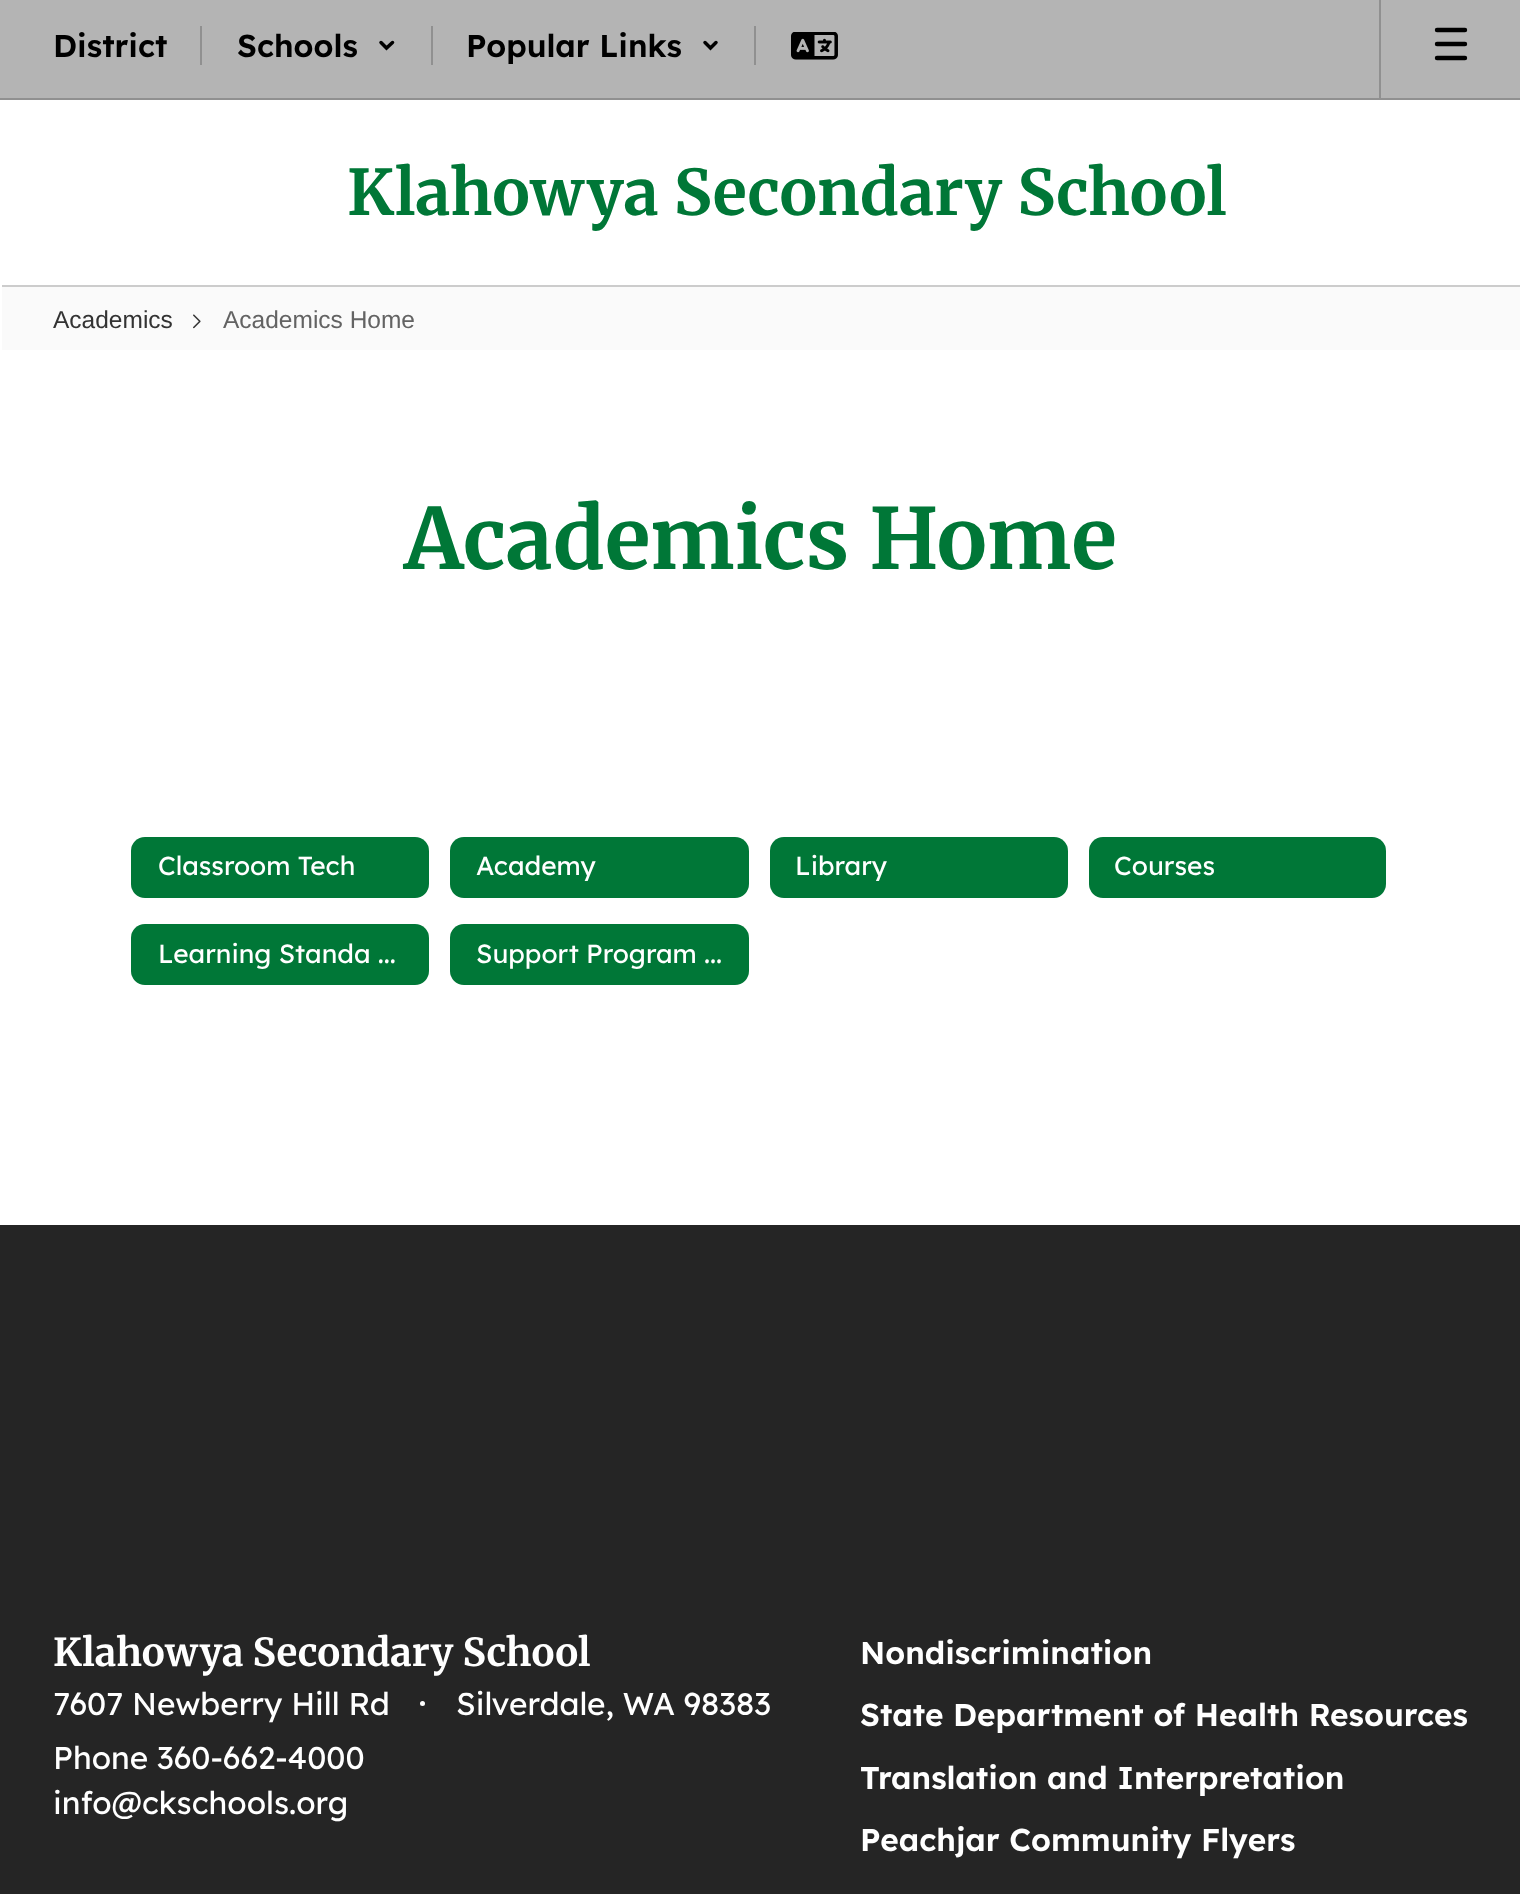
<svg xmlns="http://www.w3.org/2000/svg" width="1520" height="1894">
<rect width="100%" height="100%" fill="#fff"/>
<rect width="1520" height="98" fill="#b4b4b4"/>
<rect y="98" width="1520" height="2" fill="#909090"/>
<text x="53" y="57" style="font-family:Lexend Deca;font-size:31.5px;font-weight:600;fill:#000">District</text>
<rect x="200" y="26" width="2" height="39" fill="#909090"/>
<text x="237" y="57" style="font-family:Lexend Deca;font-size:31.5px;font-weight:600;fill:#000">Schools</text>
<path d="M381 42.5l5.5 5.5l6-5.5" fill="none" stroke="#000" stroke-width="3.5" stroke-linecap="round"/>
<rect x="431" y="26" width="2" height="39" fill="#909090"/>
<text x="466" y="57" style="font-family:Lexend Deca;font-size:31.5px;font-weight:600;fill:#000">Popular Links</text>
<path d="M705 42.5l5.5 5.5l5.5-5.5" fill="none" stroke="#000" stroke-width="3.5" stroke-linecap="round"/>
<rect x="754" y="26" width="2" height="39" fill="#909090"/>
<image x="791" y="32" width="47" height="28" href="media/1.png"/>
<rect x="1379" width="2" height="98" fill="#909090"/>
<path d="M1437 30h28m-28 14h28m-28 14h28" fill="none" stroke="#000" stroke-width="4.4" stroke-linecap="round"/>
<text x="347" y="215" style="font-family:Merriweather;font-size:63px;font-weight:300;fill:#007737">Klahowya Secondary School</text>
<rect x="2" y="285" width="1518" height="2" fill="#ccc"/>
<rect x="2" y="287" width="1518" height="63" fill="#fafafa"/>
<text x="53" y="328" style="font-family:Liberation Sans;font-size:24.5px;fill:#333">Academics</text>
<image x="193" y="314" width="8" height="15" href="media/2.png"/>
<text x="223" y="328" style="font-family:Liberation Sans;font-size:24.5px;fill:#636363">Academics Home</text>
<text x="404" y="569" style="font-family:Merriweather;font-size:84px;font-weight:300;fill:#007737">Academics Home</text>
<rect x="131" y="837" width="298" height="61" rx="14" fill="#007737"/>
<text x="158" y="875" style="font-family:Lexend Deca;font-size:26.25px;fill:#fff">Classroom Tech</text>
<rect x="450" y="837" width="299" height="61" rx="14" fill="#007737"/>
<text x="476" y="875" style="font-family:Lexend Deca;font-size:26.25px;fill:#fff">Academy</text>
<rect x="770" y="837" width="298" height="61" rx="14" fill="#007737"/>
<text x="795" y="875" style="font-family:Lexend Deca;font-size:26.25px;fill:#fff">Library</text>
<rect x="1089" y="837" width="297" height="61" rx="14" fill="#007737"/>
<text x="1114" y="875" style="font-family:Lexend Deca;font-size:26.25px;fill:#fff">Courses</text>
<rect x="131" y="924" width="298" height="61" rx="14" fill="#007737"/>
<text x="158" y="963" style="font-family:Lexend Deca;font-size:26.25px;fill:#fff">Learning Standa ...</text>
<rect x="450" y="924" width="299" height="61" rx="14" fill="#007737"/>
<text x="476" y="963" style="font-family:Lexend Deca;font-size:26.25px;fill:#fff">Support Program ...</text>
<rect y="1225" width="1520" height="669" fill="#252525"/>
<text x="53" y="1666" style="font-family:Merriweather;font-size:38.5px;font-weight:300;fill:#fff">Klahowya Secondary School</text>
<text x="53" y="1715" style="font-family:Lexend Deca;font-size:31.5px;fill:#fff">7607 Newberry Hill Rd</text>
<circle cx="422.5" cy="1703.5" r="2.5" fill="#fff"/>
<text x="456" y="1715" style="font-family:Lexend Deca;font-size:31.5px;fill:#fff">Silverdale, WA 98383</text>
<text x="53" y="1769" style="font-family:Lexend Deca;font-size:31.5px;fill:#fff">Phone 360-662-4000</text>
<text x="53" y="1814" style="font-family:Lexend Deca;font-size:31.5px;fill:#fff">info@ckschools.org</text>
<text x="860" y="1664" style="font-family:Lexend Deca;font-size:31.5px;font-weight:600;fill:#fff">Nondiscrimination</text>
<text x="860" y="1726" style="font-family:Lexend Deca;font-size:31.5px;font-weight:600;fill:#fff">State Department of Health Resources</text>
<text x="860" y="1789" style="font-family:Lexend Deca;font-size:31.5px;font-weight:600;fill:#fff">Translation and Interpretation</text>
<text x="860" y="1851" style="font-family:Lexend Deca;font-size:31.5px;font-weight:600;fill:#fff">Peachjar Community Flyers</text>
</svg>
